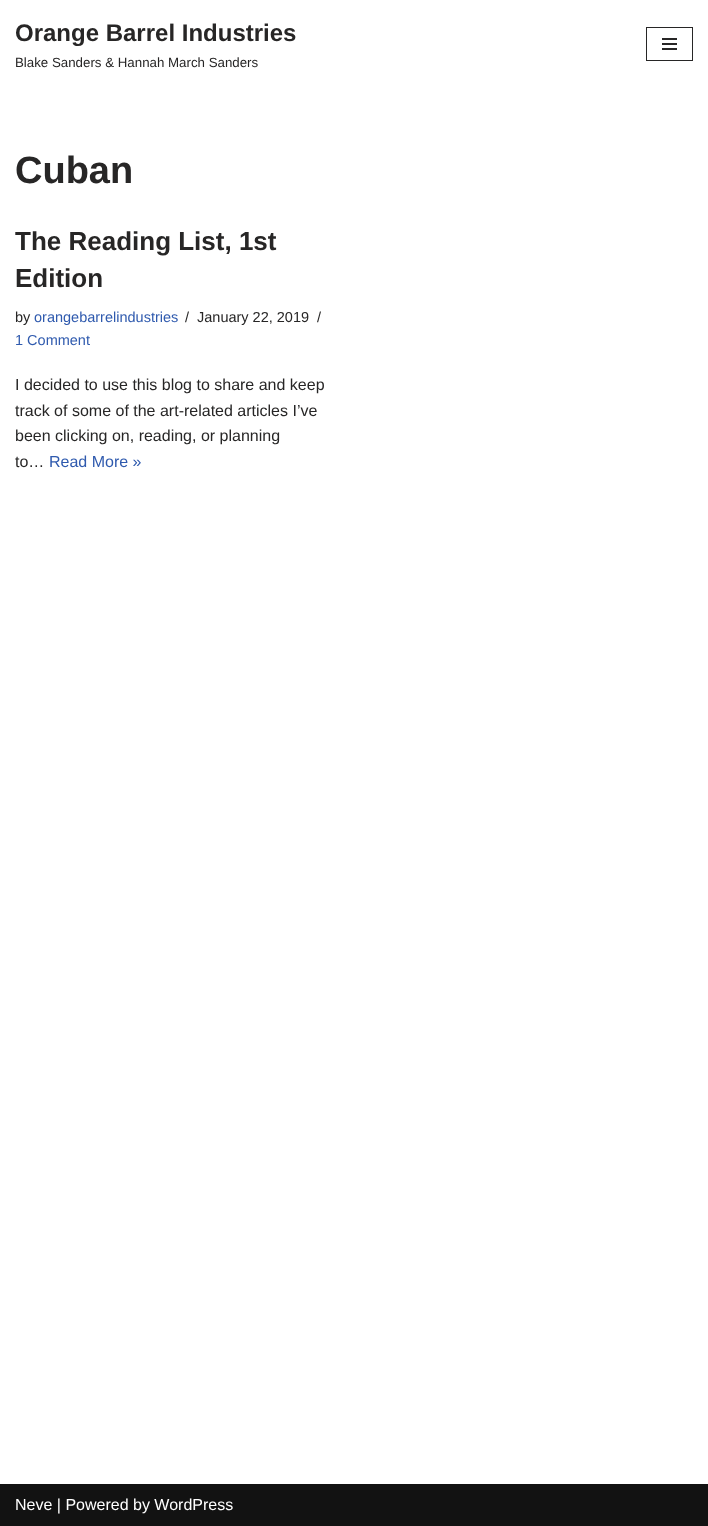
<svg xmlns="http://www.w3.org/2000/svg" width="708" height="1526">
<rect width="100%" height="100%" fill="#fff"/>
<text x="15" y="41" style="font-family:Liberation Sans;font-size:24px;font-weight:bold;fill:#272626">Orange Barrel Industries</text>
<text x="15" y="67" style="font-family:Liberation Sans;font-size:13.3px;fill:#272626">Blake Sanders &amp; Hannah March Sanders</text>
<rect x="646.5" y="27.5" width="46" height="33" fill="none" stroke="#272626"/>
<rect x="662" y="38" width="15" height="2" fill="#272626"/>
<rect x="662" y="43" width="15" height="2" fill="#272626"/>
<rect x="662" y="48" width="15" height="2" fill="#272626"/>
<text x="15" y="183" style="font-family:Liberation Sans;font-size:38px;font-weight:bold;fill:#272626">Cuban</text>
<text x="15" y="250" style="font-family:Liberation Sans;font-size:26px;font-weight:bold;fill:#272626">The Reading List, 1st</text>
<text x="15" y="287" style="font-family:Liberation Sans;font-size:26px;font-weight:bold;fill:#272626">Edition</text>
<text x="15" y="322" style="font-family:Liberation Sans;font-size:14.5px;fill:#272626">by</text>
<text x="34" y="322" style="font-family:Liberation Sans;font-size:14.5px;fill:#2f5aae">orangebarrelindustries</text>
<text x="185" y="322" style="font-family:Liberation Sans;font-size:14.5px;fill:#272626">/</text>
<text x="197" y="322" style="font-family:Liberation Sans;font-size:14.5px;fill:#272626">January 22, 2019</text>
<text x="317" y="322" style="font-family:Liberation Sans;font-size:14.5px;fill:#272626">/</text>
<text x="15" y="345" style="font-family:Liberation Sans;font-size:14.5px;fill:#2f5aae">1 Comment</text>
<text x="15" y="390" style="font-family:Liberation Sans;font-size:16px;fill:#272626">I decided to use this blog to share and keep</text>
<text x="15" y="416" style="font-family:Liberation Sans;font-size:16px;fill:#272626">track of some of the art-related articles I’ve</text>
<text x="15" y="441" style="font-family:Liberation Sans;font-size:16px;fill:#272626">been clicking on, reading, or planning</text>
<text x="15" y="467" style="font-family:Liberation Sans;font-size:16px;fill:#272626">to…</text>
<text x="49" y="467" style="font-family:Liberation Sans;font-size:16px;fill:#2f5aae">Read More »</text>
<rect y="1484" width="708" height="42" fill="#121212"/>
<text x="15" y="1510" style="font-family:Liberation Sans;font-size:16px;fill:#fff">Neve | Powered by WordPress</text>
</svg>
